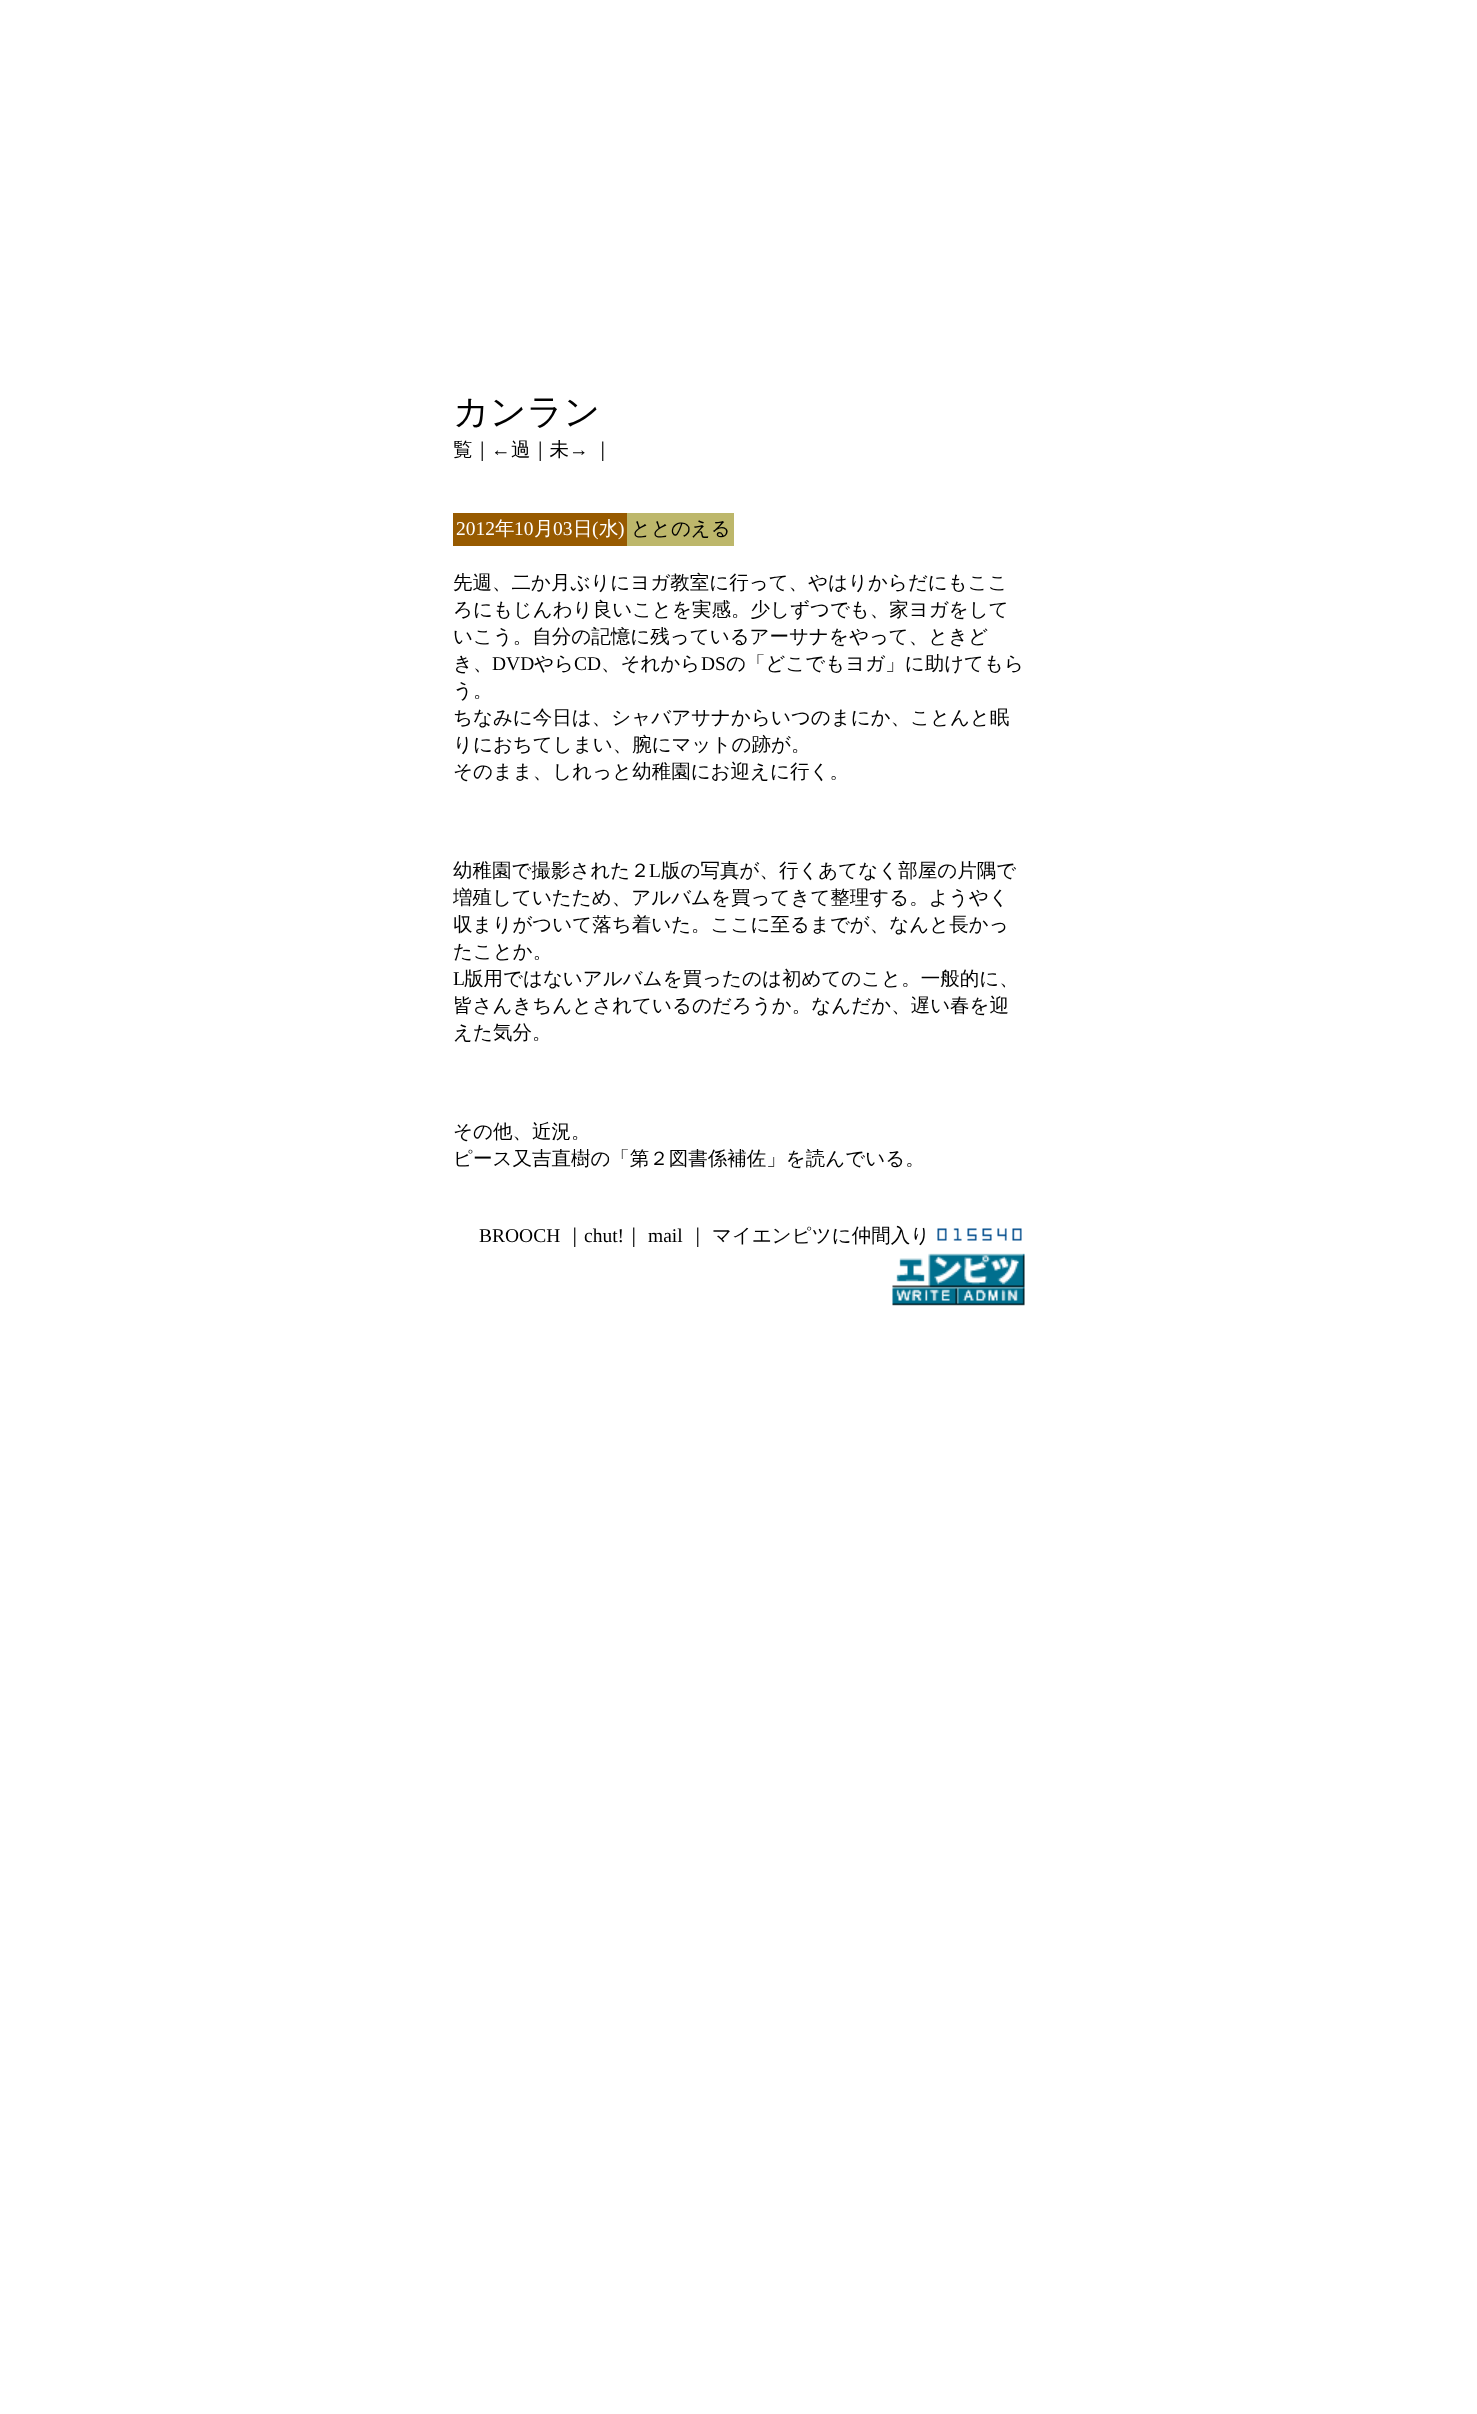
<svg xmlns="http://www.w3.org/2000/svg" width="1477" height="2414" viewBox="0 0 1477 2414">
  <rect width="100%" height="100%" fill="rgb(255,255,255)"/>
  <text x="453" y="424" font-family="WenQuanYi Zen Hei" font-size="36" font-weight="500" fill="rgb(0,0,0)">カンラン</text>
  <text x="453" y="456" font-family="WenQuanYi Zen Hei" font-size="19.5" font-weight="500" fill="rgb(0,0,0)">覧｜</text>
  <text x="491" y="456" font-family="Liberation Serif" font-size="19.5" fill="rgb(0,0,0)">←</text>
  <text x="511" y="456" font-family="WenQuanYi Zen Hei" font-size="19.5" font-weight="500" fill="rgb(0,0,0)">過｜未</text>
  <text x="569" y="456" font-family="Liberation Serif" font-size="19.5" fill="rgb(0,0,0)">→</text>
  <text x="593" y="456" font-family="WenQuanYi Zen Hei" font-size="19.5" font-weight="500" fill="rgb(0,0,0)">｜</text>
  <rect x="453" y="513" width="174" height="33" fill="rgb(151,90,0)"/>
  <text x="456" y="535" font-family="Liberation Serif" font-size="19.5" fill="rgb(255,255,255)">2012</text>
  <text x="495" y="535" font-family="WenQuanYi Zen Hei" font-size="19.5" font-weight="500" fill="rgb(255,255,255)">年</text>
  <text x="514" y="535" font-family="Liberation Serif" font-size="19.5" fill="rgb(255,255,255)">10</text>
  <text x="534" y="535" font-family="WenQuanYi Zen Hei" font-size="19.5" font-weight="500" fill="rgb(255,255,255)">月</text>
  <text x="553" y="535" font-family="Liberation Serif" font-size="19.5" fill="rgb(255,255,255)">03</text>
  <text x="573" y="535" font-family="WenQuanYi Zen Hei" font-size="19.5" font-weight="500" fill="rgb(255,255,255)">日</text>
  <text x="592" y="535" font-family="Liberation Serif" font-size="19.5" fill="rgb(255,255,255)">(</text>
  <text x="599" y="535" font-family="WenQuanYi Zen Hei" font-size="19.5" font-weight="500" fill="rgb(255,255,255)">水</text>
  <text x="618" y="535" font-family="Liberation Serif" font-size="19.5" fill="rgb(255,255,255)">)</text>
  <rect x="627" y="513" width="107" height="33" fill="rgb(189,183,107)"/>
  <g font-family="WenQuanYi Zen Hei" font-size="19.5" font-weight="500" fill="rgb(0,0,0)">
    <text x="631" y="535">ととのえる</text>
    <text>
      <tspan x="453" y="589">先週、二か月ぶりにヨガ教室に行って、やはりからだにもここ</tspan>
      <tspan x="453" y="616">ろにもじんわり良いことを実感。少しずつでも、家ヨガをして</tspan>
      <tspan x="453" y="643">いこう。自分の記憶に残っているアーサナをやって、ときど</tspan>
      <tspan x="453" y="670">き、</tspan>
    </text>
  </g>
  <text x="492" y="670" font-family="Liberation Serif" font-size="19.5" fill="rgb(0,0,0)">DVD</text>
  <text x="534" y="670" font-family="WenQuanYi Zen Hei" font-size="19.5" font-weight="500" fill="rgb(0,0,0)">やら</text>
  <text x="574" y="670" font-family="Liberation Serif" font-size="19.5" fill="rgb(0,0,0)">CD</text>
  <text x="601" y="670" font-family="WenQuanYi Zen Hei" font-size="19.5" font-weight="500" fill="rgb(0,0,0)">、それから</text>
  <text x="701" y="670" font-family="Liberation Serif" font-size="19.5" fill="rgb(0,0,0)">DS</text>
  <g font-family="WenQuanYi Zen Hei" font-size="19.5" font-weight="500" fill="rgb(0,0,0)">
    <text x="726" y="670">の「どこでもヨガ」に助けてもら</text>
    <text>
      <tspan x="453" y="697">う。</tspan>
      <tspan x="453" y="724">ちなみに今日は、シャバアサナからいつのまにか、ことんと眠</tspan>
      <tspan x="453" y="751">りにおちてしまい、腕にマットの跡が。</tspan>
      <tspan x="453" y="778">そのまま、しれっと幼稚園にお迎えに行く。</tspan>
    </text>
    <text x="453" y="877">幼稚園で撮影された２</text>
  </g>
  <text x="649" y="877" font-family="Liberation Serif" font-size="19.5" fill="rgb(0,0,0)">L</text>
  <g font-family="WenQuanYi Zen Hei" font-size="19.5" font-weight="500" fill="rgb(0,0,0)">
    <text x="661" y="877">版の写真が、行くあてなく部屋の片隅で</text>
    <text>
      <tspan x="453" y="904">増殖していたため、アルバムを買ってきて整理する。ようやく</tspan>
      <tspan x="453" y="931">収まりがついて落ち着いた。ここに至るまでが、なんと長かっ</tspan>
      <tspan x="453" y="958">たことか。</tspan>
    </text>
  </g>
  <text x="453" y="985" font-family="Liberation Serif" font-size="19.5" fill="rgb(0,0,0)">L</text>
  <g font-family="WenQuanYi Zen Hei" font-size="19.5" font-weight="500" fill="rgb(0,0,0)">
    <text x="464" y="985">版用ではないアルバムを買ったのは初めてのこと。一般的に、</text>
    <text>
      <tspan x="453" y="1012">皆さんきちんとされているのだろうか。なんだか、遅い春を迎</tspan>
      <tspan x="453" y="1039">えた気分。</tspan>
    </text>
    <text>
      <tspan x="453" y="1138">その他、近況。</tspan>
      <tspan x="453" y="1165">ピース又吉直樹の「第２図書係補佐」を読んでいる。</tspan>
    </text>
  </g>
  <text x="479" y="1242" font-family="Liberation Serif" font-size="19.5" fill="rgb(0,0,0)">BROOCH</text>
  <text x="565" y="1242" font-family="WenQuanYi Zen Hei" font-size="19.5" font-weight="500" fill="rgb(0,0,0)">｜</text>
  <text x="584" y="1242" font-family="Liberation Serif" font-size="19.5" fill="rgb(0,0,0)">chut!</text>
  <text x="624" y="1242" font-family="WenQuanYi Zen Hei" font-size="19.5" font-weight="500" fill="rgb(0,0,0)">｜</text>
  <text x="648" y="1242" font-family="Liberation Serif" font-size="19.5" fill="rgb(0,0,0)">mail</text>
  <g font-family="WenQuanYi Zen Hei" font-size="19.5" font-weight="500" fill="rgb(0,0,0)">
    <text x="688" y="1242">｜</text>
    <text x="712" y="1242">マイエンピツに仲間入り</text>
  </g>
  <image x="937" y="1228" width="85" height="13" href="pic1.png"/>
  <image x="892" y="1253" width="133" height="53" href="pic2.png"/>
</svg>
